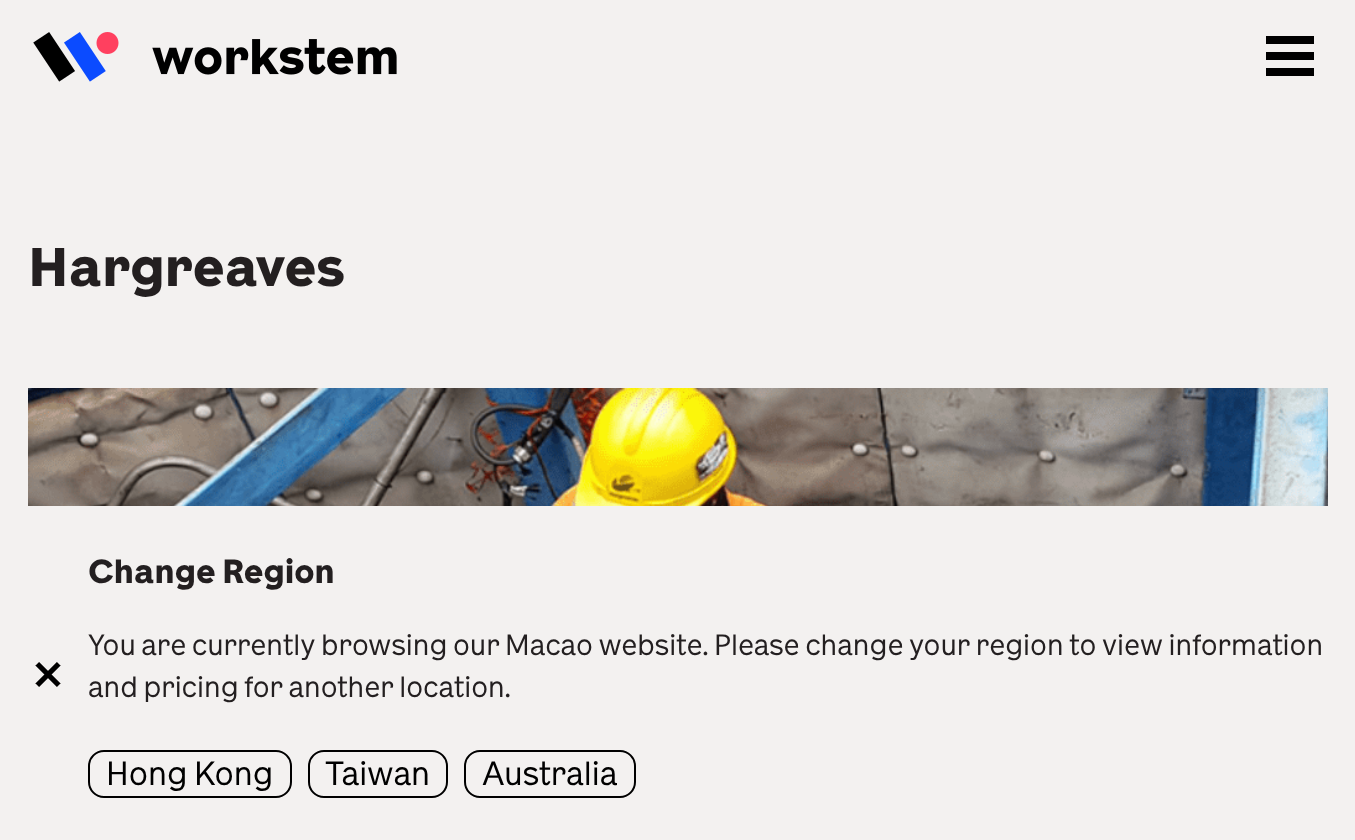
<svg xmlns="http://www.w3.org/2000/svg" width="1355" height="840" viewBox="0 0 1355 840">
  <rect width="100%" height="100%" fill="rgb(243,241,240)"/>
  <image x="33" y="32" width="364" height="50" href="pic1.png"/>
  <rect x="1266" y="36" width="48" height="8" fill="rgb(0,0,0)"/>
  <rect x="1266" y="52" width="48" height="8" fill="rgb(0,0,0)"/>
  <rect x="1266" y="68" width="48" height="8" fill="rgb(0,0,0)"/>
  <text x="28" y="286" font-family="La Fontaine" font-size="52" font-weight="bold" fill="rgb(35,31,32)">Hargreaves</text>
  <image x="28" y="388" width="1300" height="118" href="pic2.png"/>
  <image x="35" y="662" width="26" height="25" href="pic3.png"/>
  <text x="88" y="583" font-family="La Fontaine" font-size="32" font-weight="bold" fill="rgb(35,31,32)">Change Region</text>
  <g font-family="La Fontaine" font-size="28" fill="rgb(35,31,32)">
    <text>
      <tspan x="88" y="655">You are currently browsing our Macao website. Please change your region to view information</tspan>
      <tspan x="88" y="697">and pricing for another location.</tspan>
    </text>
  </g>
  <rect x="89" y="751" width="202" height="46" rx="15" fill="none" stroke="rgb(0,0,0)" stroke-width="2"/>
  <text x="106" y="785" font-family="La Fontaine" font-size="32" fill="rgb(0,0,0)">Hong Kong</text>
  <rect x="309" y="751" width="138" height="46" rx="15" fill="none" stroke="rgb(0,0,0)" stroke-width="2"/>
  <text x="325" y="785" font-family="La Fontaine" font-size="32" fill="rgb(0,0,0)">Taiwan</text>
  <rect x="465" y="751" width="170" height="46" rx="15" fill="none" stroke="rgb(0,0,0)" stroke-width="2"/>
  <text x="482" y="785" font-family="La Fontaine" font-size="32" fill="rgb(0,0,0)">Australia</text>
</svg>
